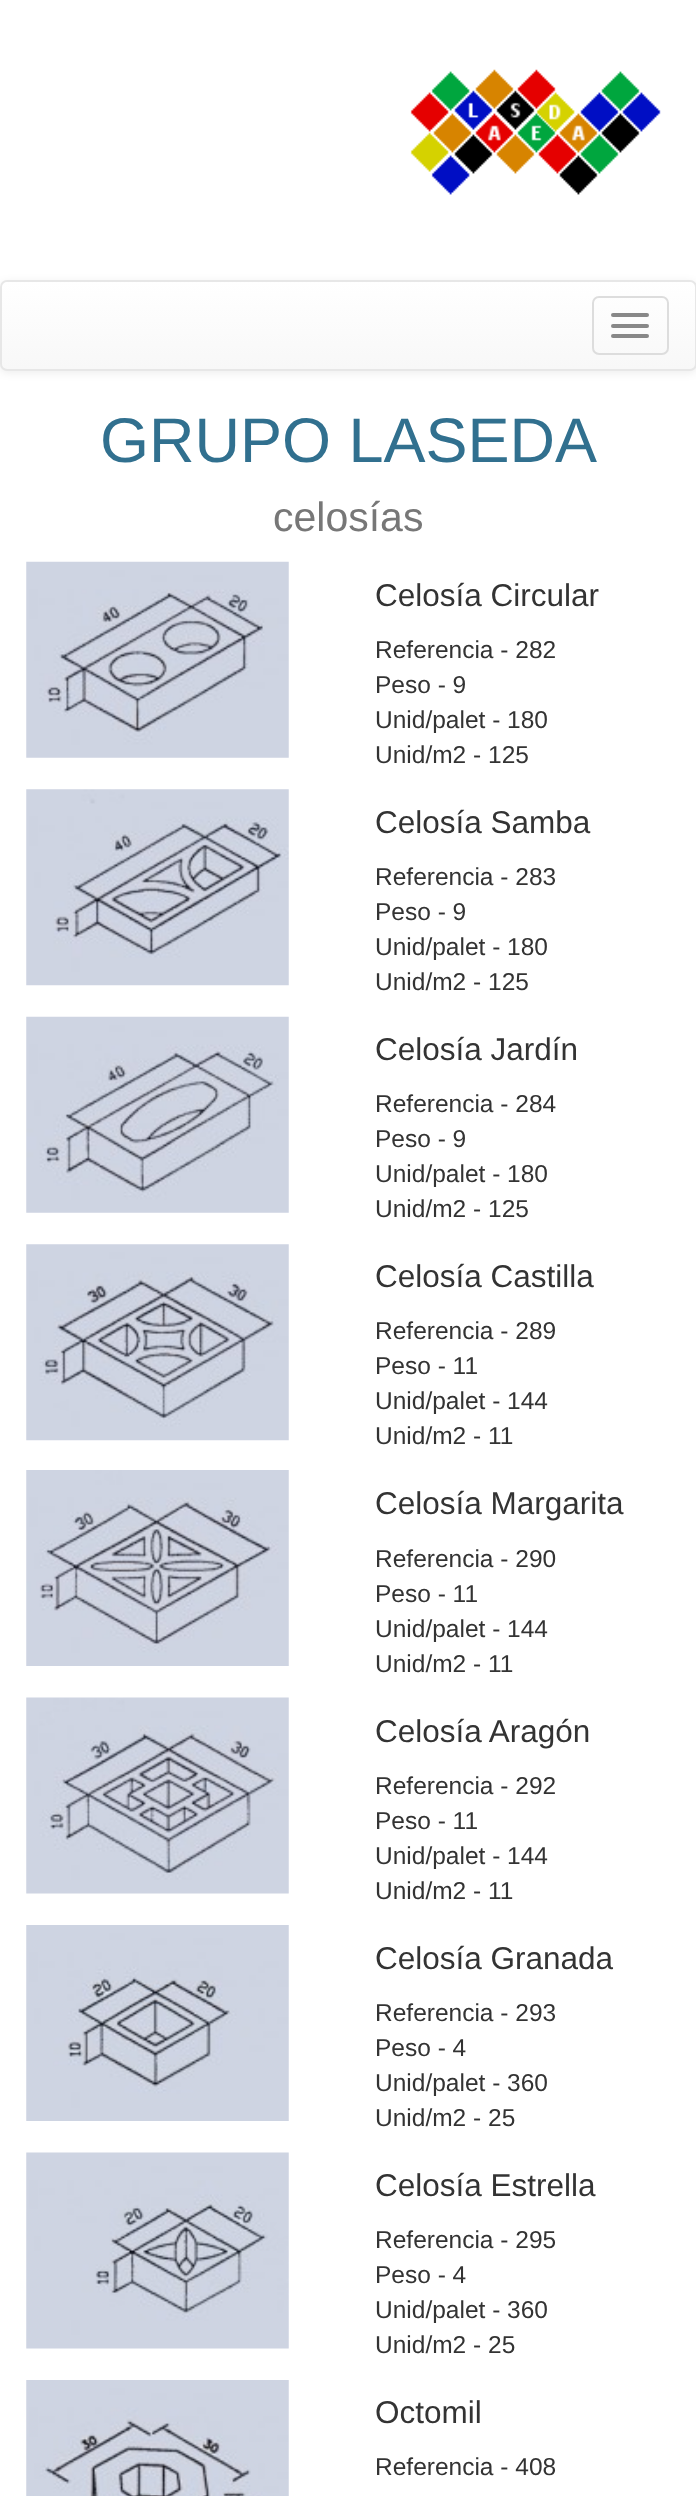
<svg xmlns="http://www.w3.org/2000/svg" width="696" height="2496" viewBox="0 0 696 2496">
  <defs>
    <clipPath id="clip1"><rect x="0" y="280" width="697" height="91" rx="7"/></clipPath>
    <linearGradient id="g1" gradientUnits="userSpaceOnUse" x1="348" y1="282" x2="348" y2="369"><stop offset="0" stop-color="rgb(255,255,255)"/><stop offset="1" stop-color="rgb(248,248,248)"/></linearGradient>
  </defs>
  <rect width="100%" height="100%" fill="rgb(255,255,255)"/>
  <image x="410" y="69" width="251" height="126" href="pic1.png"/>
  <rect x="0" y="282" width="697" height="91" rx="7" fill="rgba(0,0,0,0.07)" filter="blur(4.5px)"/>
  <g clip-path="url(#clip1)">
    <rect x="0" y="282" width="696" height="87" fill="url(#g1)"/>
  </g>
  <rect x="1" y="281" width="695" height="89" rx="6" fill="none" stroke="rgb(231,231,231)" stroke-width="2"/>
  <rect x="593" y="297" width="75" height="57" rx="6" fill="none" stroke="rgb(221,221,221)" stroke-width="2"/>
  <rect x="611" y="313" width="38" height="4" rx="2" fill="rgb(136,136,136)"/>
  <rect x="611" y="324" width="38" height="4" rx="2" fill="rgb(136,136,136)"/>
  <rect x="611" y="334" width="38" height="4" rx="2" fill="rgb(136,136,136)"/>
  <text x="100" y="462" font-family="Liberation Sans" font-size="63" fill="rgb(49,112,143)">GRUPO LASEDA</text>
  <text x="273" y="531" font-family="Liberation Sans" font-size="41" fill="rgb(119,119,119)">celosías</text>
  <image x="26" y="561" width="263" height="197" href="pic2.png"/>
  <text x="375" y="606" font-family="Liberation Sans" font-size="31.5" fill="rgb(51,51,51)">Celosía Circular</text>
  <g font-family="Liberation Sans" font-size="24.5" fill="rgb(51,51,51)">
    <text>
      <tspan x="375" y="658">Referencia - 282</tspan>
      <tspan x="375" y="693">Peso - 9</tspan>
      <tspan x="375" y="728">Unid/palet - 180</tspan>
      <tspan x="375" y="763">Unid/m2 - 125</tspan>
    </text>
  </g>
  <image x="26" y="789" width="263" height="197" href="pic3.png"/>
  <text x="375" y="833" font-family="Liberation Sans" font-size="31.5" fill="rgb(51,51,51)">Celosía Samba</text>
  <g font-family="Liberation Sans" font-size="24.5" fill="rgb(51,51,51)">
    <text>
      <tspan x="375" y="885">Referencia - 283</tspan>
      <tspan x="375" y="920">Peso - 9</tspan>
      <tspan x="375" y="955">Unid/palet - 180</tspan>
      <tspan x="375" y="990">Unid/m2 - 125</tspan>
    </text>
  </g>
  <image x="26" y="1016" width="263" height="197" href="pic4.png"/>
  <text x="375" y="1060" font-family="Liberation Sans" font-size="31.5" fill="rgb(51,51,51)">Celosía Jardín</text>
  <g font-family="Liberation Sans" font-size="24.5" fill="rgb(51,51,51)">
    <text>
      <tspan x="375" y="1112">Referencia - 284</tspan>
      <tspan x="375" y="1147">Peso - 9</tspan>
      <tspan x="375" y="1182">Unid/palet - 180</tspan>
      <tspan x="375" y="1217">Unid/m2 - 125</tspan>
    </text>
  </g>
  <image x="26" y="1244" width="263" height="197" href="pic5.png"/>
  <text x="375" y="1287" font-family="Liberation Sans" font-size="31.5" fill="rgb(51,51,51)">Celosía Castilla</text>
  <g font-family="Liberation Sans" font-size="24.5" fill="rgb(51,51,51)">
    <text>
      <tspan x="375" y="1339">Referencia - 289</tspan>
      <tspan x="375" y="1374">Peso - 11</tspan>
      <tspan x="375" y="1409">Unid/palet - 144</tspan>
      <tspan x="375" y="1444">Unid/m2 - 11</tspan>
    </text>
  </g>
  <image x="26" y="1470" width="263" height="196" href="pic6.png"/>
  <text x="375" y="1514" font-family="Liberation Sans" font-size="31.5" fill="rgb(51,51,51)">Celosía Margarita</text>
  <g font-family="Liberation Sans" font-size="24.5" fill="rgb(51,51,51)">
    <text>
      <tspan x="375" y="1567">Referencia - 290</tspan>
      <tspan x="375" y="1602">Peso - 11</tspan>
      <tspan x="375" y="1637">Unid/palet - 144</tspan>
      <tspan x="375" y="1672">Unid/m2 - 11</tspan>
    </text>
  </g>
  <image x="26" y="1697" width="263" height="197" href="pic7.png"/>
  <text x="375" y="1742" font-family="Liberation Sans" font-size="31.5" fill="rgb(51,51,51)">Celosía Aragón</text>
  <g font-family="Liberation Sans" font-size="24.5" fill="rgb(51,51,51)">
    <text>
      <tspan x="375" y="1794">Referencia - 292</tspan>
      <tspan x="375" y="1829">Peso - 11</tspan>
      <tspan x="375" y="1864">Unid/palet - 144</tspan>
      <tspan x="375" y="1899">Unid/m2 - 11</tspan>
    </text>
  </g>
  <image x="26" y="1925" width="263" height="196" href="pic8.png"/>
  <text x="375" y="1969" font-family="Liberation Sans" font-size="31.5" fill="rgb(51,51,51)">Celosía Granada</text>
  <g font-family="Liberation Sans" font-size="24.5" fill="rgb(51,51,51)">
    <text>
      <tspan x="375" y="2021">Referencia - 293</tspan>
      <tspan x="375" y="2056">Peso - 4</tspan>
      <tspan x="375" y="2091">Unid/palet - 360</tspan>
      <tspan x="375" y="2126">Unid/m2 - 25</tspan>
    </text>
  </g>
  <image x="26" y="2152" width="263" height="197" href="pic9.png"/>
  <text x="375" y="2196" font-family="Liberation Sans" font-size="31.5" fill="rgb(51,51,51)">Celosía Estrella</text>
  <g font-family="Liberation Sans" font-size="24.5" fill="rgb(51,51,51)">
    <text>
      <tspan x="375" y="2248">Referencia - 295</tspan>
      <tspan x="375" y="2283">Peso - 4</tspan>
      <tspan x="375" y="2318">Unid/palet - 360</tspan>
      <tspan x="375" y="2353">Unid/m2 - 25</tspan>
    </text>
  </g>
  <image x="26" y="2380" width="263" height="116" href="pic10.png"/>
  <text x="375" y="2423" font-family="Liberation Sans" font-size="31.5" fill="rgb(51,51,51)">Octomil</text>
  <text x="375" y="2475" font-family="Liberation Sans" font-size="24.5" fill="rgb(51,51,51)">Referencia - 408</text>
</svg>
